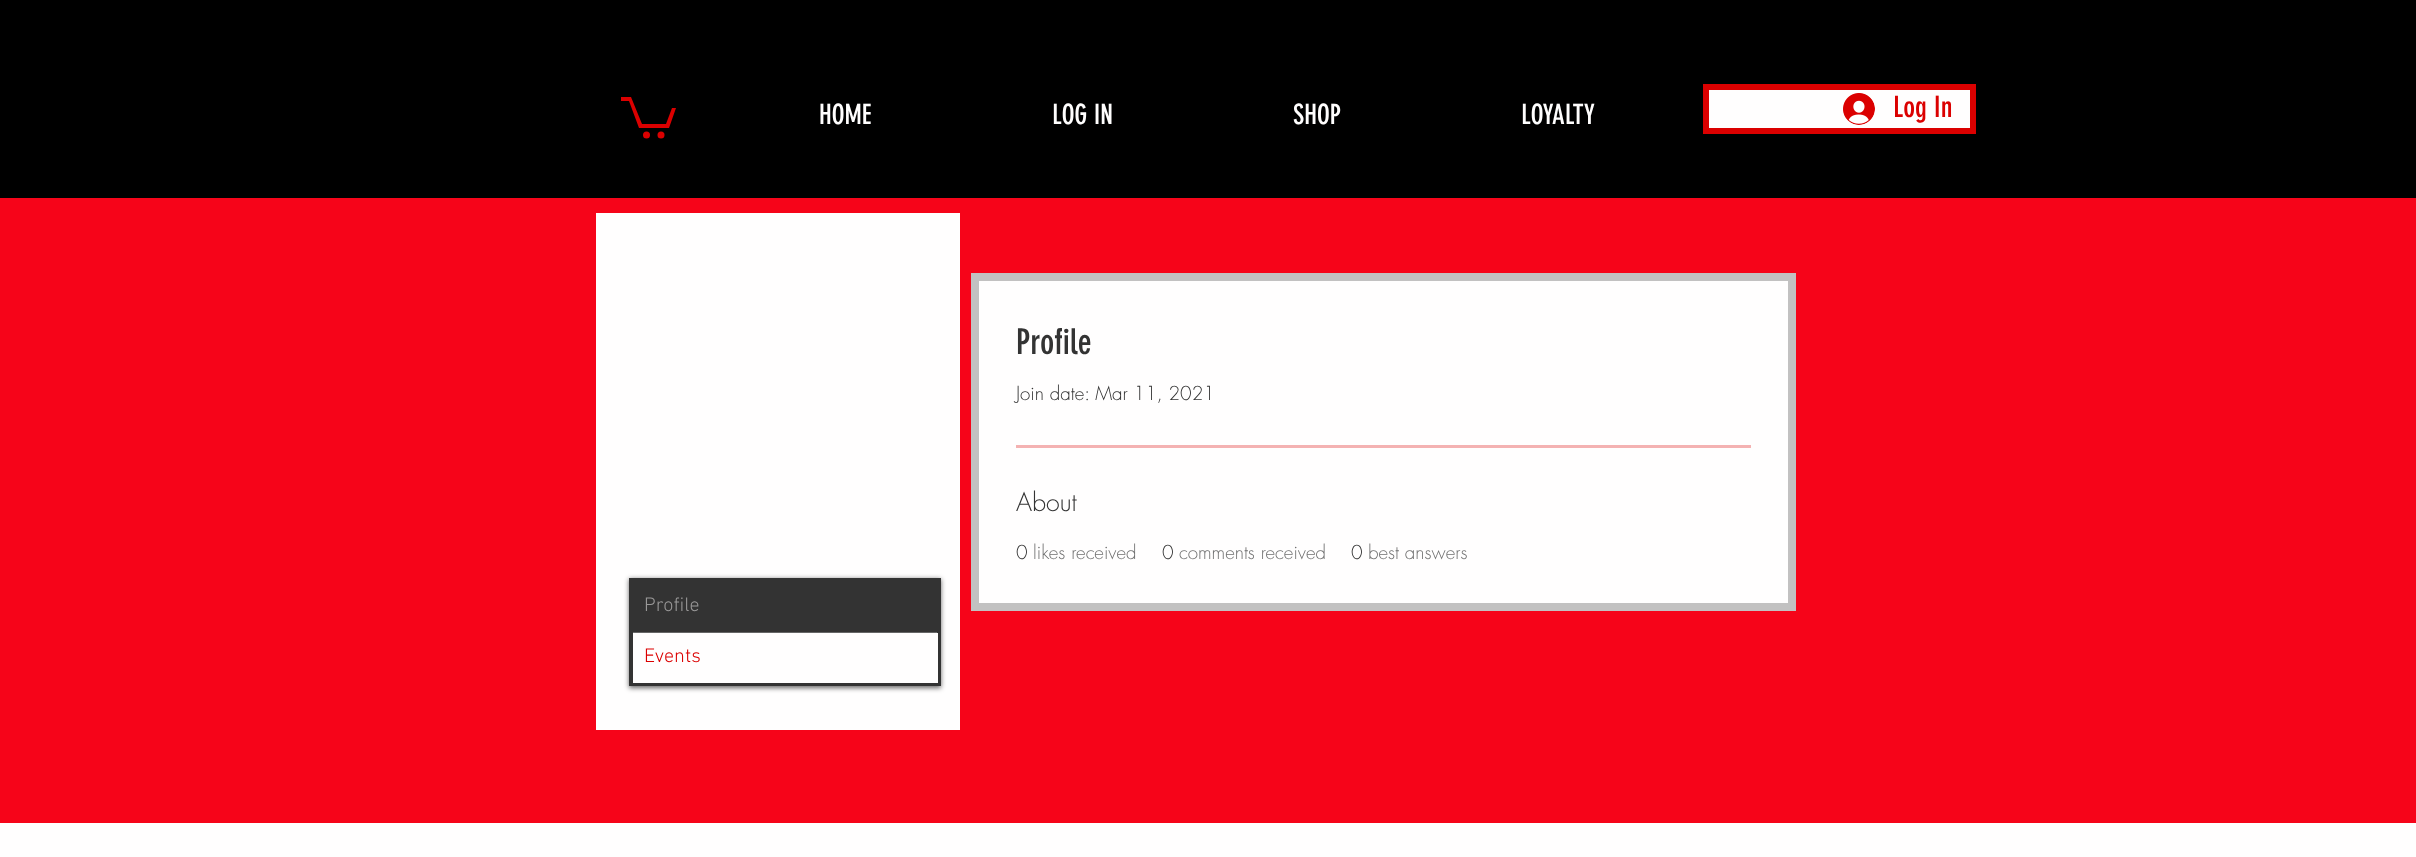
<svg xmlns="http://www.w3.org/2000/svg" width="2416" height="857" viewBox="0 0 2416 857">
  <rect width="100%" height="100%" fill="rgb(246,4,25)"/>
  <rect x="0" y="0" width="2416" height="198" fill="rgb(0,0,0)"/>
  <path d="M676 108L669 128H639L629 101H621V97H631L642 124H666L672 108" fill="rgb(219,0,0)"/>
  <circle cx="661" cy="135" r="3.5" fill="rgb(219,0,0)"/>
  <circle cx="646.5" cy="135" r="3.5" fill="rgb(219,0,0)"/>
  <g font-family="'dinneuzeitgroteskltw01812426'" font-size="27.5" fill="rgb(255,254,254)">
    <text x="819" y="124">HOME</text>
    <text x="1052" y="124">LOG IN</text>
    <text x="1293" y="124">SHOP</text>
    <text x="1521" y="124">LOYALTY</text>
  </g>
  <rect x="1706" y="87" width="267" height="44" fill="rgb(255,254,254)" stroke="rgb(219,0,0)" stroke-width="6"/>
  <image x="1843" y="93" width="32" height="32" href="pic1.png"/>
  <text x="1893" y="117" font-family="'dinneuzeitgroteskltw01812426'" font-size="29" fill="rgb(219,0,0)">Log In</text>
  <rect x="975" y="277" width="817" height="330" fill="rgb(255,254,254)" stroke="rgb(194,193,193)" stroke-width="8"/>
  <text x="1016" y="354" font-family="'dinneuzeitgroteskltw01812426'" font-size="35" fill="rgb(51,51,51)">Profile</text>
  <text x="1016" y="400" font-family="futura" font-size="18.75" font-weight="300" fill="rgb(51,51,51)">Join date: Mar 11, 2021</text>
  <rect x="1016" y="445" width="735" height="3" fill="rgb(244,178,178)"/>
  <text x="1016" y="511" font-family="futura" font-size="25" font-weight="300" fill="rgb(51,51,51)">About</text>
  <text x="1016" y="559" font-family="futura" font-size="18.75" font-weight="300" fill="rgb(51,51,51)">0</text>
  <text x="1033" y="559" font-family="futura" font-size="18.75" font-weight="300" fill="rgb(112,112,112)">likes received</text>
  <text x="1162" y="559" font-family="futura" font-size="18.75" font-weight="300" fill="rgb(51,51,51)">0</text>
  <text x="1179" y="559" font-family="futura" font-size="18.75" font-weight="300" fill="rgb(112,112,112)">comments received</text>
  <text x="1351" y="559" font-family="futura" font-size="18.75" font-weight="300" fill="rgb(51,51,51)">0</text>
  <text x="1368" y="559" font-family="futura" font-size="18.75" font-weight="300" fill="rgb(112,112,112)">best answers</text>
  <rect x="596" y="213" width="364" height="517" fill="rgb(255,254,254)"/>
  <rect x="629" y="579" width="312" height="109" fill="rgba(0,0,0,0.6)" filter="blur(2.5px)"/>
  <rect x="631" y="580" width="308" height="104" fill="none" stroke="rgb(51,51,51)" stroke-width="4"/>
  <rect x="633" y="631" width="305" height="1" fill="rgb(51,51,51)"/>
  <rect x="633" y="582" width="304" height="49" fill="rgb(51,51,51)"/>
  <text x="644" y="611" font-family="'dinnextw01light'" font-size="20" font-weight="300" fill="rgb(153,152,152)">Profile</text>
  <rect x="633" y="633" width="305" height="50" fill="rgb(255,254,254)"/>
  <text x="644" y="662" font-family="'dinnextw01light'" font-size="20" font-weight="300" fill="rgb(219,0,0)">Events</text>
  <rect x="0" y="823" width="2416" height="34" fill="rgb(255,254,254)"/>
</svg>
